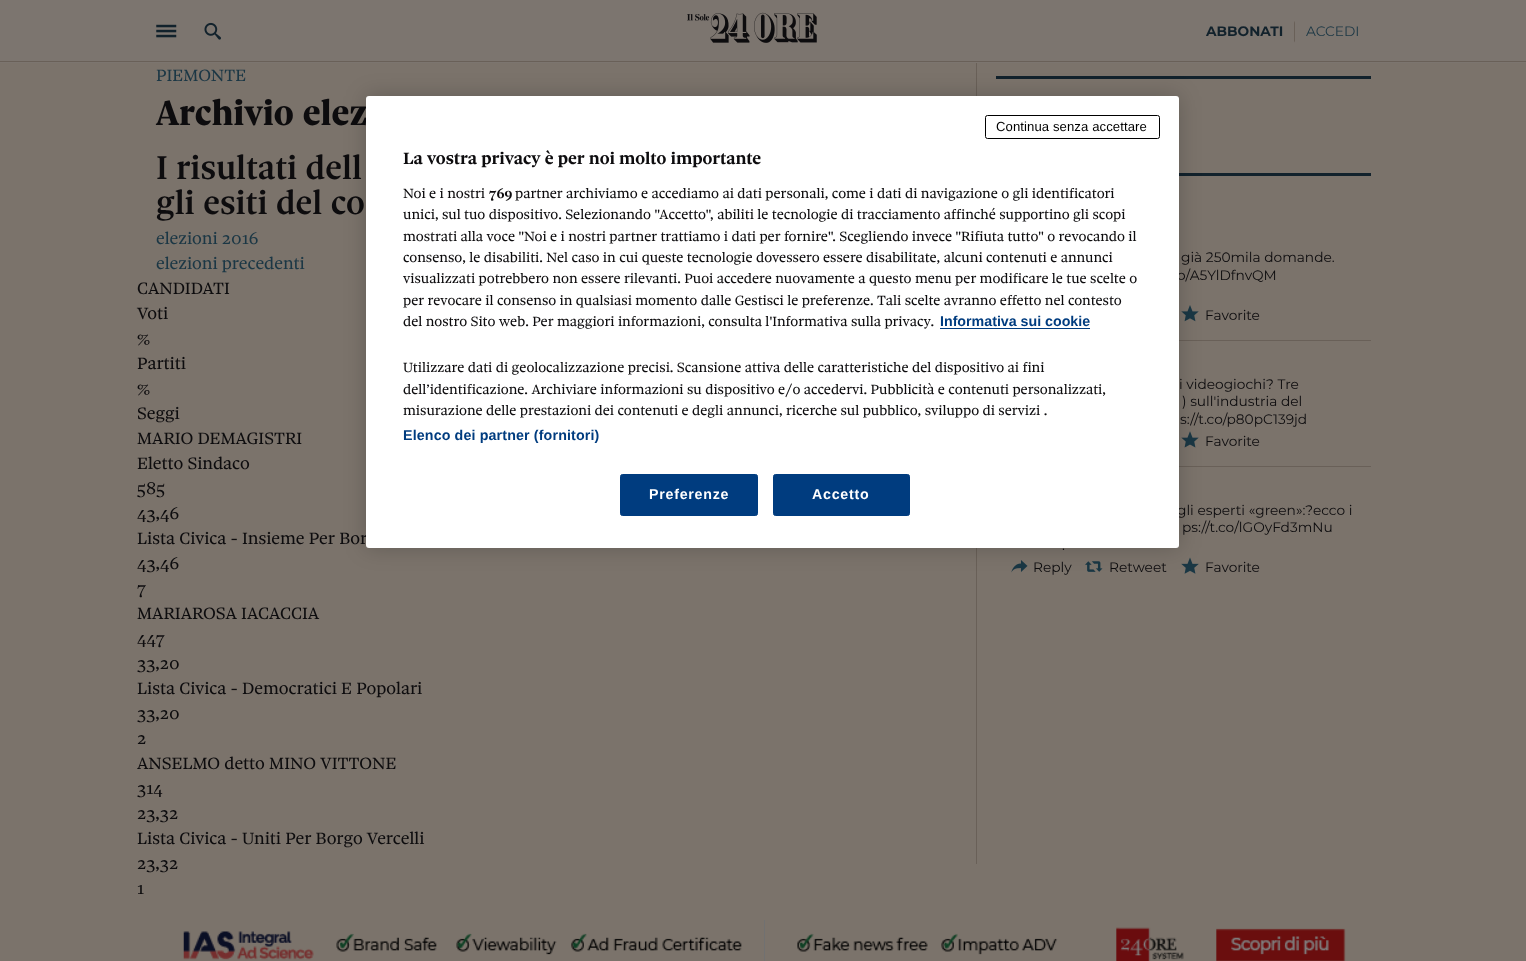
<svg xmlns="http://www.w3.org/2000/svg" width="1526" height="961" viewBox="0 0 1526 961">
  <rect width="100%" height="100%" fill="rgb(123,115,107)"/>
  <rect x="0" y="0" width="1526" height="63" fill="rgb(124,117,111)"/>
  <rect x="0" y="61" width="1526" height="1" fill="rgb(105,96,88)"/>
  <image x="156" y="24" width="21" height="14" href="pic1.png"/>
  <image x="204" y="22" width="17" height="18" href="pic2.png"/>
  <image x="687" y="12" width="130" height="31" href="pic3.png"/>
  <path d="M1295 21V42.5L1294 41V22.5Z" fill="rgb(105,96,88)"/>
  <text x="1206" y="36" font-family="Montserrat" font-size="13.75" font-weight="bold" fill="rgb(18,34,44)">ABBONATI</text>
  <text x="1306" y="36" font-family="Montserrat" font-size="13.75" fill="rgb(27,55,69)">ACCEDI</text>
  <text x="156" y="81" font-family="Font" font-size="17.5" fill="rgb(27,55,69)">PIEMONTE</text>
  <text x="156" y="125" font-family="Font" font-size="37.5" font-weight="bold" fill="rgb(13,12,14)">Archivio elez</text>
  <g font-family="Font" font-size="35" font-weight="500" fill="rgb(13,12,14)">
    <text>
      <tspan x="156" y="179">I risultati dell</tspan>
      <tspan x="156" y="214">gli esiti del co</tspan>
    </text>
  </g>
  <g font-family="Font" font-size="17.5" fill="rgb(27,55,69)">
    <text>
      <tspan x="156" y="244">elezioni 2016</tspan>
      <tspan x="156" y="269">elezioni precedenti</tspan>
    </text>
  </g>
  <g font-family="Font" font-size="17.5" fill="rgb(13,12,14)">
    <text>
      <tspan x="137" y="294">CANDIDATI</tspan>
      <tspan x="137" y="319">Voti</tspan>
      <tspan x="137" y="344">%</tspan>
      <tspan x="137" y="369">Partiti</tspan>
      <tspan x="137" y="394">%</tspan>
      <tspan x="137" y="419">Seggi</tspan>
      <tspan x="137" y="444">MARIO DEMAGISTRI</tspan>
      <tspan x="137" y="469">Eletto Sindaco</tspan>
      <tspan x="137" y="494">585</tspan>
      <tspan x="137" y="519">43,46</tspan>
      <tspan x="137" y="544">Lista Civica - Insieme Per Bor</tspan>
      <tspan x="137" y="569">43,46</tspan>
      <tspan x="137" y="594">7</tspan>
      <tspan x="137" y="619">MARIAROSA IACACCIA</tspan>
      <tspan x="137" y="644">447</tspan>
      <tspan x="137" y="669">33,20</tspan>
      <tspan x="137" y="694">Lista Civica - Democratici E Popolari</tspan>
      <tspan x="137" y="719">33,20</tspan>
      <tspan x="137" y="744">2</tspan>
      <tspan x="137" y="769">ANSELMO detto MINO VITTONE</tspan>
      <tspan x="137" y="794">314</tspan>
      <tspan x="137" y="819">23,32</tspan>
      <tspan x="137" y="844">Lista Civica - Uniti Per Borgo Vercelli</tspan>
      <tspan x="137" y="869">23,32</tspan>
      <tspan x="137" y="894">1</tspan>
    </text>
  </g>
  <rect x="976" y="63" width="1" height="801" fill="rgb(105,96,88)"/>
  <rect x="996" y="76" width="375" height="3" fill="rgb(18,34,44)"/>
  <rect x="1179" y="173" width="192" height="3" fill="rgb(18,34,44)"/>
  <rect x="1179" y="340" width="192" height="1" fill="rgb(105,96,88)"/>
  <g font-family="Montserrat" font-size="13.75" fill="rgb(13,12,14)">
    <text x="1181" y="262">già 250mila domande.</text>
    <text x="1177" y="280">o/A5YlDfnvQM</text>
  </g>
  <image x="1181" y="305" width="18" height="17" href="pic4.png"/>
  <text x="1205" y="320" font-family="Montserrat" font-size="13.75" fill="rgb(13,12,14)">Favorite</text>
  <rect x="1179" y="466" width="192" height="1" fill="rgb(105,96,88)"/>
  <g font-family="Montserrat" font-size="13.75" fill="rgb(13,12,14)">
    <text x="1179" y="389">i videogiochi? Tre</text>
    <text x="1182" y="406">) sull'industria del</text>
    <text x="1180" y="424">s://t.co/p80pC139jd</text>
  </g>
  <image x="1181" y="431" width="18" height="17" href="pic5.png"/>
  <g font-family="Montserrat" font-size="13.75" fill="rgb(13,12,14)">
    <text x="1205" y="446">Favorite</text>
    <text x="1177" y="515">gli esperti «green»:?ecco i</text>
    <text x="1182" y="532">ps://t.co/lGOyFd3mNu</text>
    <text x="1062" y="550">.</text>
  </g>
  <image x="1011" y="560" width="17" height="13" href="pic6.png"/>
  <text x="1033" y="572" font-family="Montserrat" font-size="13.75" fill="rgb(13,12,14)">Reply</text>
  <image x="1085" y="561" width="18" height="11" href="pic7.png"/>
  <text x="1109" y="572" font-family="Montserrat" font-size="13.75" fill="rgb(13,12,14)">Retweet</text>
  <image x="1181" y="557" width="18" height="17" href="pic8.png"/>
  <text x="1205" y="572" font-family="Montserrat" font-size="13.75" fill="rgb(13,12,14)">Favorite</text>
  <image x="183" y="931" width="559" height="29" href="pic9.png"/>
  <rect x="764" y="920" width="1" height="41" fill="rgb(113,113,113)"/>
  <image x="797" y="927" width="549" height="34" href="pic10.png"/>
  <rect x="366" y="96" width="813" height="452" rx="3" fill="rgba(0,0,0,0.2)" filter="blur(11px)"/>
  <rect x="366" y="96" width="813" height="452" rx="3" fill="rgb(255,255,255)"/>
  <rect x="985.5" y="115.5" width="174" height="23" rx="2" fill="none" stroke="rgb(0,0,0)"/>
  <text x="996" y="131" font-family="Liberation Sans" font-size="13.1" letter-spacing="0.1" fill="rgb(0,0,0)">Continua senza accettare</text>
  <text x="403" y="164" font-family="'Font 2'" font-size="17.5" font-weight="bold" fill="rgb(13,12,14)">La vostra privacy è per noi molto importante</text>
  <text x="403" y="198" font-family="Font" font-size="14.23" fill="rgb(13,12,14)">Noi e i nostri</text>
  <text x="489" y="198" font-family="'Font 2'" font-size="14.23" font-weight="bold" fill="rgb(13,12,14)">769</text>
  <g font-family="Font" font-size="14.23" fill="rgb(13,12,14)">
    <text x="515" y="198">partner archiviamo e accediamo ai dati personali, come i dati di navigazione o gli identificatori</text>
    <text>
      <tspan x="403" y="219">unici, sul tuo dispositivo. Selezionando "Accetto", abiliti le tecnologie di tracciamento affinché supportino gli scopi</tspan>
      <tspan x="403" y="241">mostrati alla voce "Noi e i nostri partner trattiamo i dati per fornire". Scegliendo invece "Rifiuta tutto" o revocando il</tspan>
      <tspan x="403" y="262">consenso, le disabiliti. Nel caso in cui queste tecnologie dovessero essere disabilitate, alcuni contenuti e annunci</tspan>
      <tspan x="403" y="283">visualizzati potrebbero non essere rilevanti. Puoi accedere nuovamente a questo menu per modificare le tue scelte o</tspan>
      <tspan x="403" y="305">per revocare il consenso in qualsiasi momento dalle Gestisci le preferenze. Tali scelte avranno effetto nel contesto</tspan>
      <tspan x="403" y="326">del nostro Sito web. Per maggiori informazioni, consulta l'Informativa sulla privacy.</tspan>
    </text>
  </g>
  <text x="940" y="326" font-family="Liberation Sans" font-size="14.23" font-weight="bold" fill="rgb(0,60,127)">Informativa sui cookie</text>
  <rect x="940" y="328" width="150" height="1" fill="rgb(0,60,127)"/>
  <g font-family="Font" font-size="14.23" fill="rgb(13,12,14)">
    <text>
      <tspan x="403" y="372">Utilizzare dati di geolocalizzazione precisi. Scansione attiva delle caratteristiche del dispositivo ai fini</tspan>
      <tspan x="403" y="394">dell’identificazione. Archiviare informazioni su dispositivo e/o accedervi. Pubblicità e contenuti personalizzati,</tspan>
      <tspan x="403" y="415">misurazione delle prestazioni dei contenuti e degli annunci, ricerche sul pubblico, sviluppo di servizi .</tspan>
    </text>
  </g>
  <text x="403" y="440" font-family="Liberation Sans" font-size="14.23" font-weight="bold" letter-spacing="0.15" fill="rgb(0,60,127)">Elenco dei partner (fornitori)</text>
  <rect x="620.5" y="474.5" width="137" height="41" rx="2" fill="rgb(0,60,127)" stroke="rgb(0,60,127)"/>
  <text x="649" y="499" font-family="Liberation Sans" font-size="14.23" font-weight="bold" letter-spacing="0.75" fill="rgb(255,255,255)">Preferenze</text>
  <rect x="773.5" y="474.5" width="136" height="41" rx="2" fill="rgb(0,60,127)" stroke="rgb(0,60,127)"/>
  <text x="812" y="499" font-family="Liberation Sans" font-size="14.23" font-weight="bold" letter-spacing="0.75" fill="rgb(255,255,255)">Accetto</text>
</svg>
